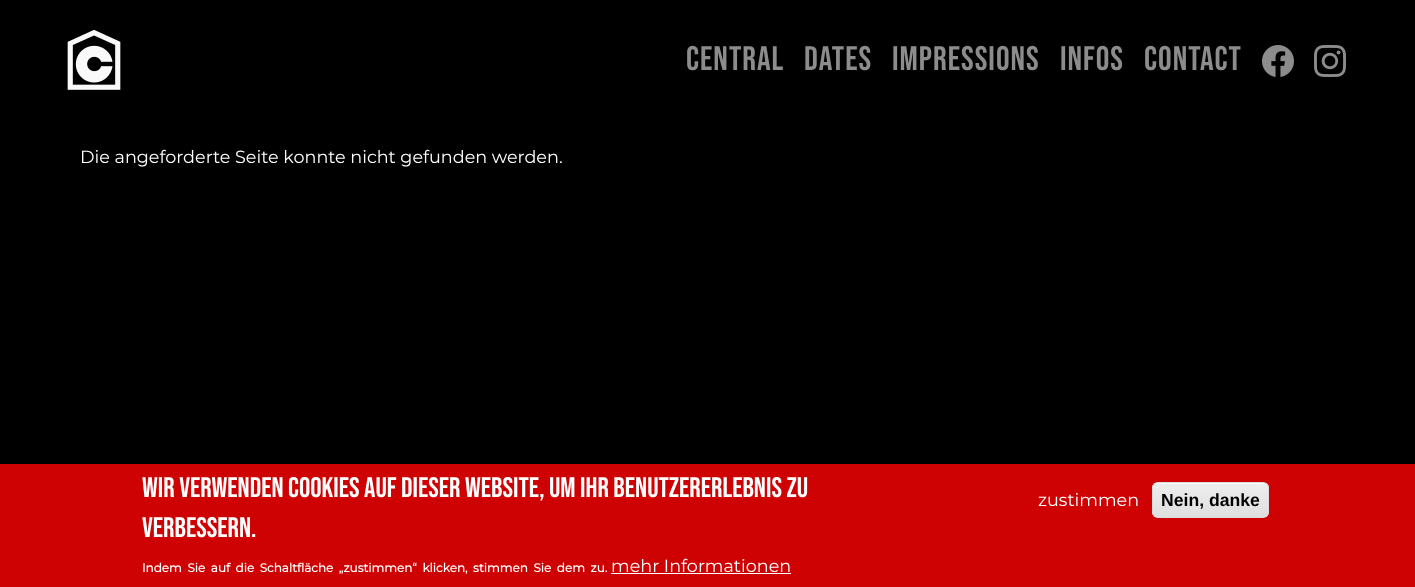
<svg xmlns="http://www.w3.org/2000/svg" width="1415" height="587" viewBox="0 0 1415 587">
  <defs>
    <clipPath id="clip1"><rect x="1152" y="482" width="117" height="36" rx="6"/></clipPath>
    <linearGradient id="g1" gradientUnits="userSpaceOnUse" x1="1211" y1="483" x2="1211" y2="517"><stop offset="0.05" stop-color="rgb(237,237,237)"/><stop offset="1" stop-color="rgb(223,223,223)"/></linearGradient>
  </defs>
  <rect width="100%" height="100%" fill="rgb(0,0,0)"/>
  <image x="67" y="30" width="54" height="60" href="pic1.png"/>
  <g font-family="Bebas Neue" font-size="34" letter-spacing="1" fill="rgb(140,140,140)">
    <text x="686" y="70">Central</text>
    <text x="804" y="70">Dates</text>
    <text x="892" y="70">Impressions</text>
    <text x="1060" y="70">Infos</text>
    <text x="1144" y="70">Contact</text>
  </g>
  <image x="1262" y="45" width="32" height="32" href="pic2.png"/>
  <image x="1314" y="45" width="32" height="32" href="pic3.png"/>
  <text x="80" y="163" font-family="Montserrat" font-size="17.6" fill="rgb(255,255,255)">Die angeforderte Seite konnte nicht gefunden werden.</text>
  <rect x="0" y="464" width="1415" height="123" fill="rgb(206,2,2)"/>
  <g font-family="Bebas Neue" font-size="28.3" fill="rgb(255,255,255)">
    <text>
      <tspan x="142" y="497">Wir verwenden Cookies auf dieser Website, um Ihr Benutzererlebnis zu</tspan>
      <tspan x="142" y="537">verbessern.</tspan>
    </text>
  </g>
  <text x="142" y="572" word-spacing="2.4" font-family="Montserrat" font-size="12" font-weight="bold" fill="rgb(255,255,255)">Indem Sie auf die Schaltfläche „zustimmen“ klicken, stimmen Sie dem zu.</text>
  <text x="611" y="572" font-family="Montserrat" font-size="17.6" fill="rgb(255,255,255)">mehr Informationen</text>
  <rect x="611" y="573" width="180" height="1" fill="rgb(255,255,255)"/>
  <text x="1038" y="506" font-family="Montserrat" font-size="17.6" fill="rgb(255,255,255)">zustimmen</text>
  <g clip-path="url(#clip1)">
    <rect x="1152" y="483" width="117" height="34" fill="url(#g1)"/>
  </g>
  <path d="M1158 484H1263C1266 484 1268 486 1268 489C1268 479 1250 483 1246 483H1176C1171 483 1153 479 1153 489C1153 486 1155 484 1158 484Z" fill="rgb(255,255,255)"/>
  <rect x="1152.5" y="482.5" width="116" height="35" rx="5.5" fill="none" stroke="rgb(220,220,220)"/>
  <text x="1161" y="506" font-family="Liberation Sans" font-size="17.6" font-weight="bold" fill="rgb(0,0,0)">Nein, danke</text>
</svg>
